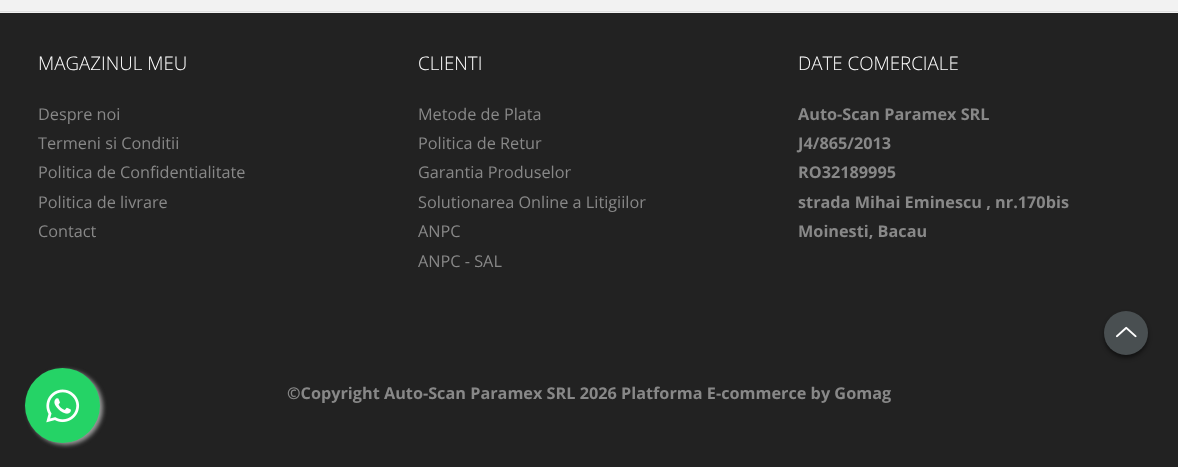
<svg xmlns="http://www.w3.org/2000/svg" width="1178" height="467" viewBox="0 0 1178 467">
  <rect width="100%" height="100%" fill="rgb(34,34,34)"/>
  <rect x="0" y="0" width="1178" height="13" fill="rgb(242,242,242)"/>
  <rect x="0" y="11" width="1178" height="1" fill="rgb(223,223,223)"/>
  <text x="38" y="70" font-family="Open Sans" font-size="18.75" font-weight="300" fill="rgb(255,255,255)">MAGAZINUL MEU</text>
  <g font-family="Open Sans" font-size="16.25" fill="rgb(136,136,136)">
    <text>
      <tspan x="38" y="120">Despre noi</tspan>
      <tspan x="38" y="149">Termeni si Conditii</tspan>
      <tspan x="38" y="178">Politica de Confidentialitate</tspan>
      <tspan x="38" y="208">Politica de livrare</tspan>
      <tspan x="38" y="237">Contact</tspan>
    </text>
  </g>
  <text x="418" y="70" font-family="Open Sans" font-size="18.75" font-weight="300" fill="rgb(255,255,255)">CLIENTI</text>
  <g font-family="Open Sans" font-size="16.25" fill="rgb(136,136,136)">
    <text>
      <tspan x="418" y="120">Metode de Plata</tspan>
      <tspan x="418" y="149">Politica de Retur</tspan>
      <tspan x="418" y="178">Garantia Produselor</tspan>
      <tspan x="418" y="208">Solutionarea Online a Litigiilor</tspan>
      <tspan x="418" y="237">ANPC</tspan>
      <tspan x="418" y="267">ANPC - SAL</tspan>
    </text>
  </g>
  <text x="798" y="70" font-family="Open Sans" font-size="18.75" font-weight="300" fill="rgb(255,255,255)">DATE COMERCIALE</text>
  <g font-family="Open Sans" font-size="16.25" font-weight="bold" fill="rgb(136,136,136)">
    <text>
      <tspan x="798" y="120">Auto-Scan Paramex SRL</tspan>
      <tspan x="798" y="149">J4/865/2013</tspan>
      <tspan x="798" y="178">RO32189995</tspan>
      <tspan x="798" y="208">strada Mihai Eminescu , nr.170bis</tspan>
      <tspan x="798" y="237">Moinesti, Bacau</tspan>
    </text>
    <text x="287" y="399">©Copyright Auto-Scan Paramex SRL 2026 Platforma E-commerce by Gomag</text>
  </g>
  <rect x="1104" y="314" width="44" height="44" rx="22" fill="rgba(0,0,0,0.5)" filter="blur(2px)"/>
  <circle cx="1126" cy="333" r="22" fill="rgb(73,79,81)"/>
  <image x="1116" y="326" width="21" height="12" href="pic1.png"/>
  <rect x="28" y="370" width="75" height="75" rx="37.5" fill="rgb(153,153,153)" filter="blur(2px)"/>
  <circle cx="62.5" cy="405.5" r="37.5" fill="rgb(37,211,102)"/>
  <image x="46" y="389" width="34" height="34" href="pic2.png"/>
</svg>
